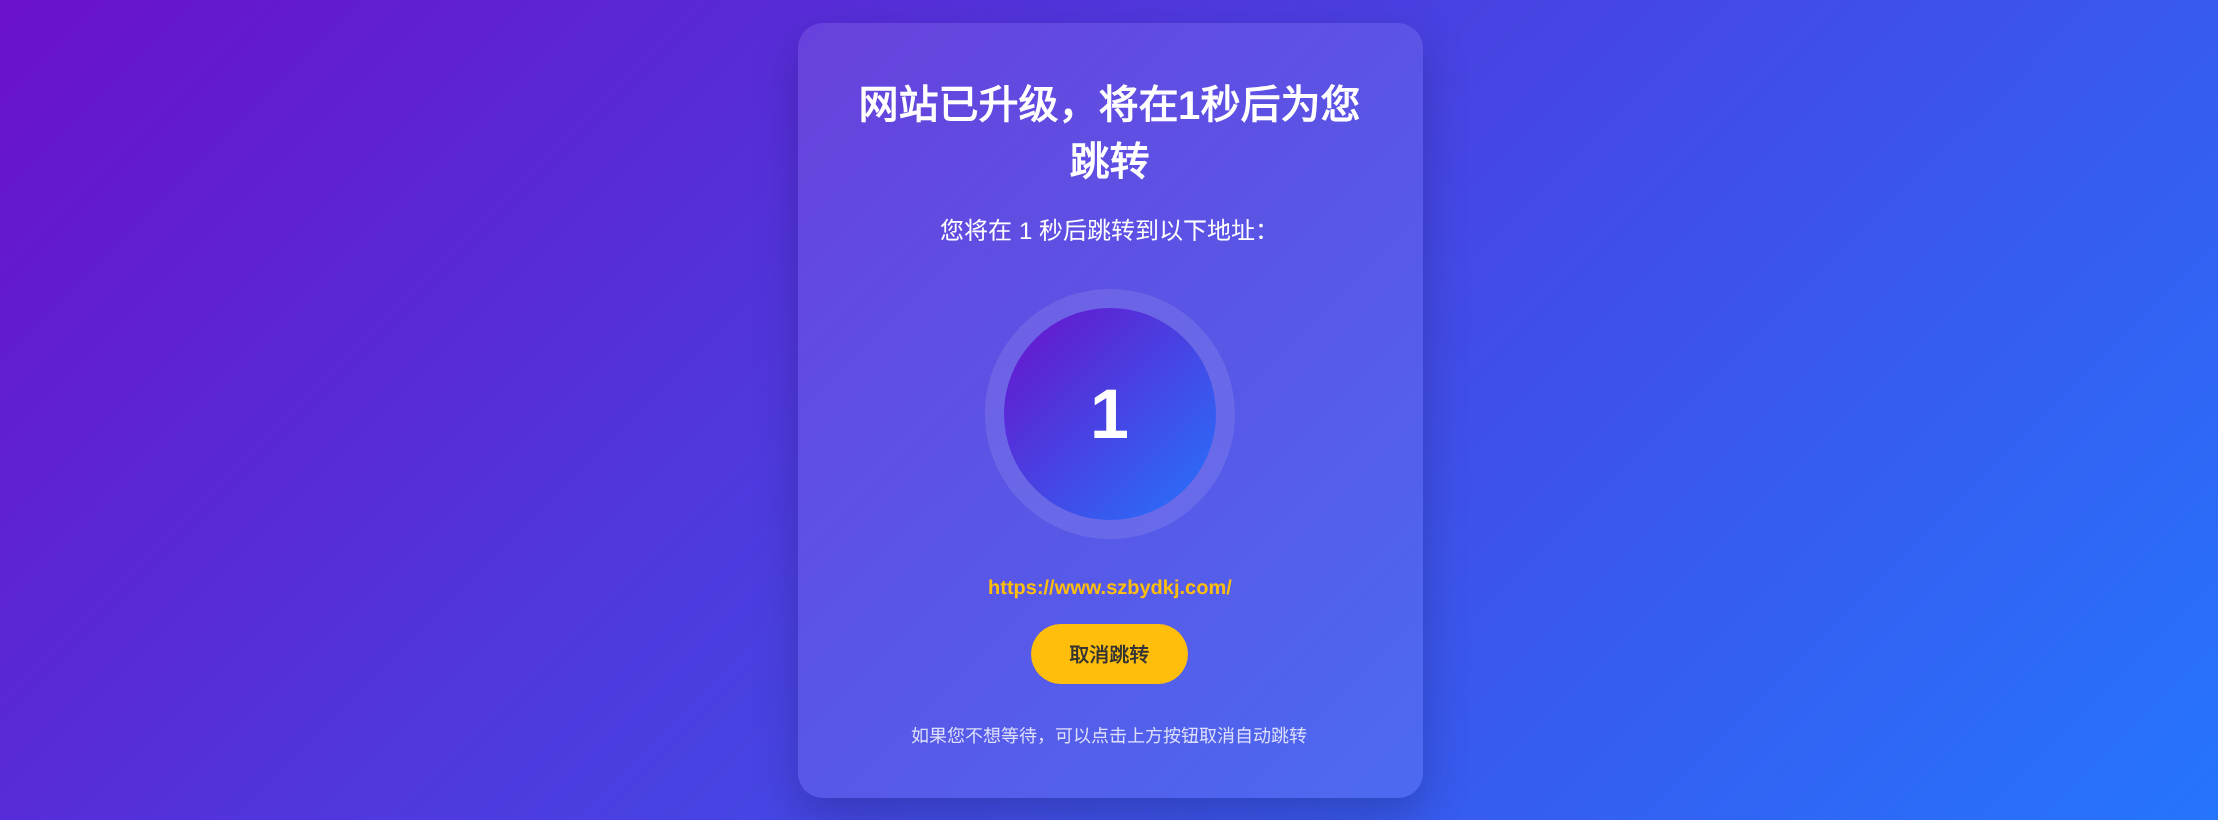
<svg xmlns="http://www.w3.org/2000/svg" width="2218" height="820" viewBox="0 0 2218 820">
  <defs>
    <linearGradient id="g1" gradientUnits="userSpaceOnUse" x1="350" y1="-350" x2="1869" y2="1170"><stop offset="0" stop-color="rgb(106,17,203)"/><stop offset="1" stop-color="rgb(37,117,252)"/></linearGradient>
    <clipPath id="clip1"><path d="M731 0H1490V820H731ZM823 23H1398C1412 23 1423 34 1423 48V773C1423 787 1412 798 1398 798H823C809 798 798 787 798 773V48C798 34 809 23 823 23Z" clip-rule="evenodd"/></clipPath>
    <linearGradient id="g2" gradientUnits="userSpaceOnUse" x1="1004" y1="308" x2="1216" y2="520"><stop offset="0" stop-color="rgb(106,17,203)"/><stop offset="1" stop-color="rgb(37,117,252)"/></linearGradient>
  </defs>
  <rect width="100%" height="100%" fill="rgb(255,255,255)"/>
  <rect x="0" y="0" width="2218" height="820" fill="url(#g1)"/>
  <g clip-path="url(#clip1)">
    <rect x="798" y="41" width="625" height="775" rx="25" fill="rgba(0,0,0,0.2)" filter="blur(22px)"/>
  </g>
  <rect x="798" y="23" width="625" height="775" rx="25" fill="rgba(255,255,255,0.1)"/>
  <text x="858" y="119" font-family="Noto Sans CJK SC" font-size="40" font-weight="bold" fill="rgb(255,255,255)">网站已升级，将在</text>
  <text x="1178" y="119" font-family="Liberation Sans" font-size="40" font-weight="bold" fill="rgb(255,255,255)">1</text>
  <g font-family="Noto Sans CJK SC" font-size="40" font-weight="bold" fill="rgb(255,255,255)">
    <text x="1200" y="119">秒后为您</text>
    <text x="1069" y="176">跳转</text>
  </g>
  <text x="940" y="239" font-family="Noto Sans CJK SC" font-size="24" fill="rgb(255,255,255)">您将在</text>
  <text x="1019" y="239" font-family="Liberation Sans" font-size="24" fill="rgb(255,255,255)">1</text>
  <text x="1039" y="239" font-family="Noto Sans CJK SC" font-size="24" fill="rgb(255,255,255)">秒后跳转到以下地址：</text>
  <path d="M1110 414V289C1179 289 1235 345 1235 414C1235 483 1179 539 1110 539C1041 539 985 483 985 414C985 345 1041 289 1110 289Z" fill="rgba(255,255,255,0.1)"/>
  <circle cx="1110" cy="414" r="106" fill="url(#g2)"/>
  <text x="1090" y="438" font-family="Liberation Sans" font-size="70" font-weight="bold" fill="rgb(255,255,255)">1</text>
  <text x="988" y="594" font-family="Liberation Sans" font-size="20" font-weight="bold" fill="rgb(255,190,11)">https://www.szbydkj.com/</text>
  <rect x="1031" y="624" width="157" height="60" rx="30" fill="rgb(255,190,11)"/>
  <text x="1069" y="662" font-family="Noto Sans CJK SC" font-size="20" font-weight="bold" fill="rgb(51,51,51)">取消跳转</text>
  <text x="911" y="742" font-family="Noto Sans CJK SC" font-size="18" fill="rgb(221,223,251)">如果您不想等待，可以点击上方按钮取消自动跳转</text>
</svg>
